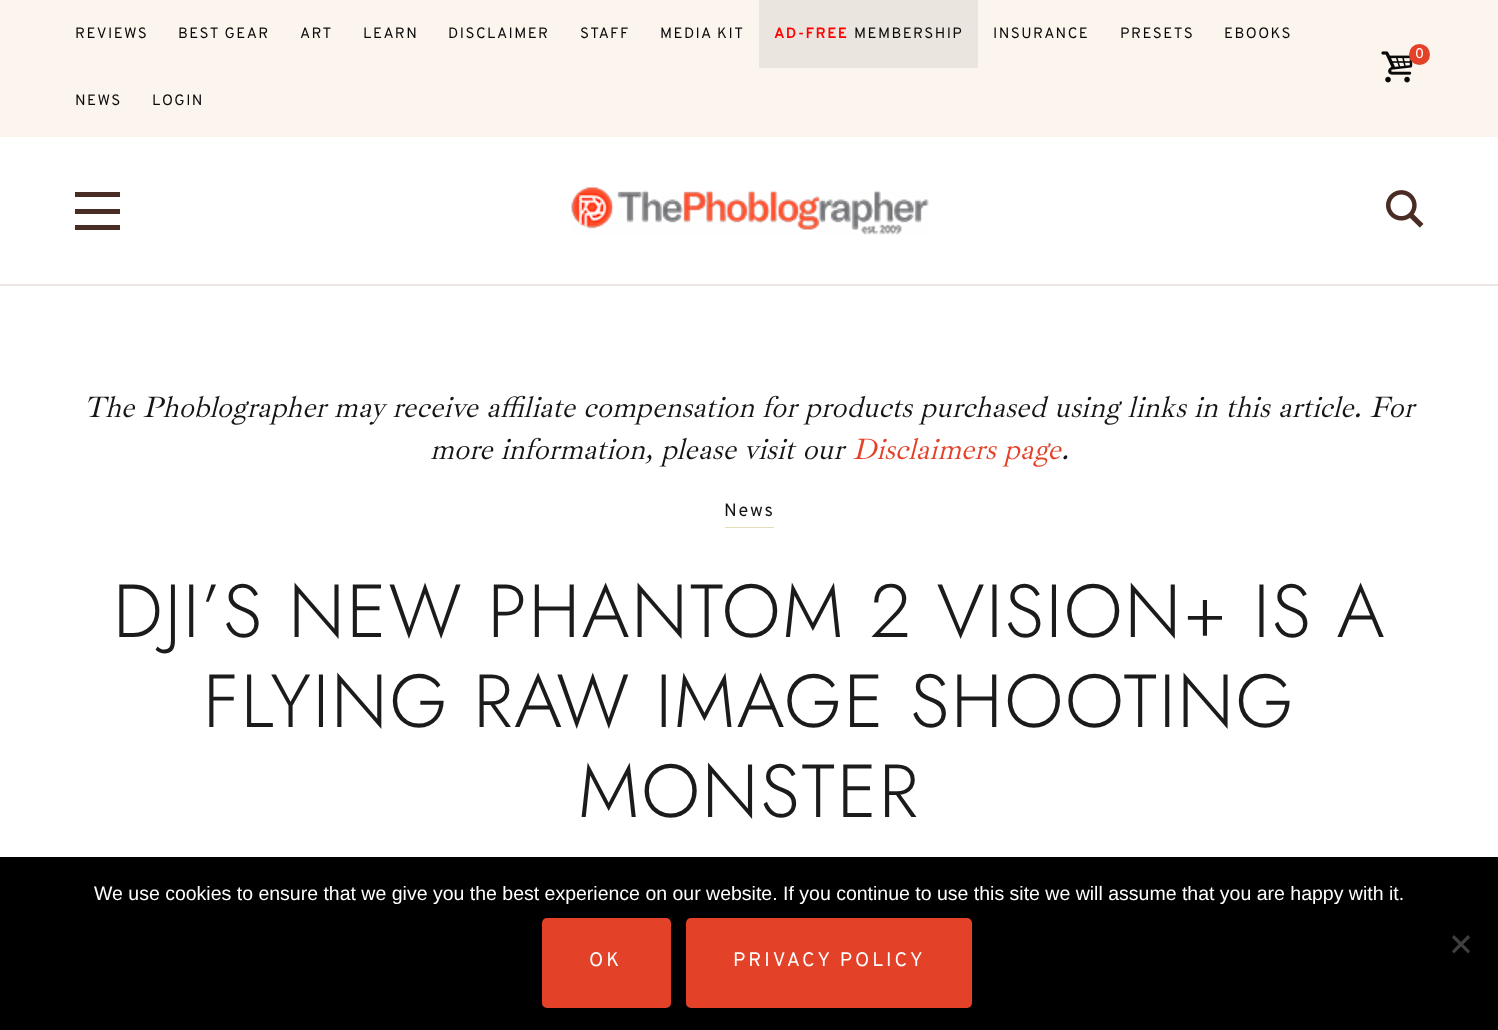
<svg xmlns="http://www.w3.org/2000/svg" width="1498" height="1030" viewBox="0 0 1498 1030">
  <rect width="100%" height="100%" fill="rgb(255,255,255)"/>
  <rect x="0" y="0" width="1498" height="137" fill="rgb(251,245,237)"/>
  <g font-family="Overpass" font-size="15" letter-spacing="1.5" fill="rgb(10,10,10)">
    <text x="75" y="38">REVIEWS</text>
    <text x="178" y="38">BEST GEAR</text>
    <text x="300" y="38">ART</text>
    <text x="363" y="38">LEARN</text>
    <text x="448" y="38">DISCLAIMER</text>
    <text x="580" y="38">STAFF</text>
    <text x="660" y="38">MEDIA KIT</text>
  </g>
  <rect x="759" y="0" width="219" height="68" fill="rgb(234,229,222)"/>
  <text x="774" y="38" font-family="Overpass" font-size="15" font-weight="600" letter-spacing="1.5" fill="rgb(255,0,0)">AD-FREE</text>
  <g font-family="Overpass" font-size="15" letter-spacing="1.5" fill="rgb(10,10,10)">
    <text x="854" y="38">MEMBERSHIP</text>
    <text x="993" y="38">INSURANCE</text>
    <text x="1120" y="38">PRESETS</text>
    <text x="1224" y="38">EBOOKS</text>
    <text x="75" y="105">NEWS</text>
    <text x="152" y="105">LOGIN</text>
  </g>
  <image x="1381" y="51" width="32" height="32" href="pic1.png"/>
  <circle cx="1419.5" cy="54.5" r="10.5" fill="rgb(227,66,40)"/>
  <text x="1415" y="58" font-family="Overpass" font-size="14" letter-spacing="1" fill="rgb(255,255,255)">0</text>
  <rect x="0" y="284" width="1498" height="2" fill="rgb(238,230,226)"/>
  <rect x="75" y="192" width="45" height="5" fill="rgb(73,44,35)"/>
  <rect x="75" y="225" width="45" height="5" fill="rgb(73,44,35)"/>
  <rect x="75" y="209" width="45" height="5" fill="rgb(73,44,35)"/>
  <image x="571" y="187" width="358" height="48" href="pic2.png"/>
  <image x="1386" y="190" width="38" height="38" href="pic3.png"/>
  <g font-family="Ibarra Real Nova" font-size="30" font-style="italic" fill="rgb(18,20,22)">
    <text x="84" y="417">The Phoblographer may receive affiliate compensation for products purchased using links in this article. For</text>
    <text x="430" y="459">more information, please visit our</text>
  </g>
  <text x="852" y="459" font-family="Ibarra Real Nova" font-size="30" font-style="italic" fill="rgb(227,66,40)">Disclaimers page</text>
  <text x="1061" y="459" font-family="Ibarra Real Nova" font-size="30" font-style="italic" fill="rgb(18,20,22)">.</text>
  <rect x="725" y="527" width="49" height="1" fill="rgb(229,221,179)"/>
  <text x="724" y="516" font-family="Overpass" font-size="18" letter-spacing="1.8" fill="rgb(18,20,22)">News</text>
  <g font-family="Jost" font-size="75" font-weight="300" letter-spacing="1.8" fill="rgb(27,27,27)">
    <text x="113" y="637">DJI’S NEW PHANTOM 2 VISION+ IS A</text>
    <text x="203" y="727">FLYING RAW IMAGE SHOOTING</text>
    <text x="578" y="817">MONSTER</text>
  </g>
  <rect x="0" y="857" width="1498" height="173" fill="rgb(0,0,0)"/>
  <text x="94" y="900" font-family="Liberation Sans" font-size="19.5" fill="rgb(255,255,255)">We use cookies to ensure that we give you the best experience on our website. If you continue to use this site we will assume that you are happy with it.</text>
  <path d="M1468 935L1470 937.5L1454 953.5L1452 951Z" fill="rgb(64,64,64)"/>
  <path d="M1452 937.5L1454 935L1470 951L1468 953.5Z" fill="rgb(64,64,64)"/>
  <rect x="542" y="918" width="129" height="90" rx="5" fill="rgb(227,66,40)"/>
  <text x="589" y="966" font-family="Overpass" font-size="19.5" letter-spacing="3" fill="rgb(255,255,255)">OK</text>
  <rect x="686" y="918" width="286" height="90" rx="5" fill="rgb(227,66,40)"/>
  <text x="733" y="966" font-family="Overpass" font-size="19.5" letter-spacing="3" fill="rgb(255,255,255)">PRIVACY POLICY</text>
</svg>
